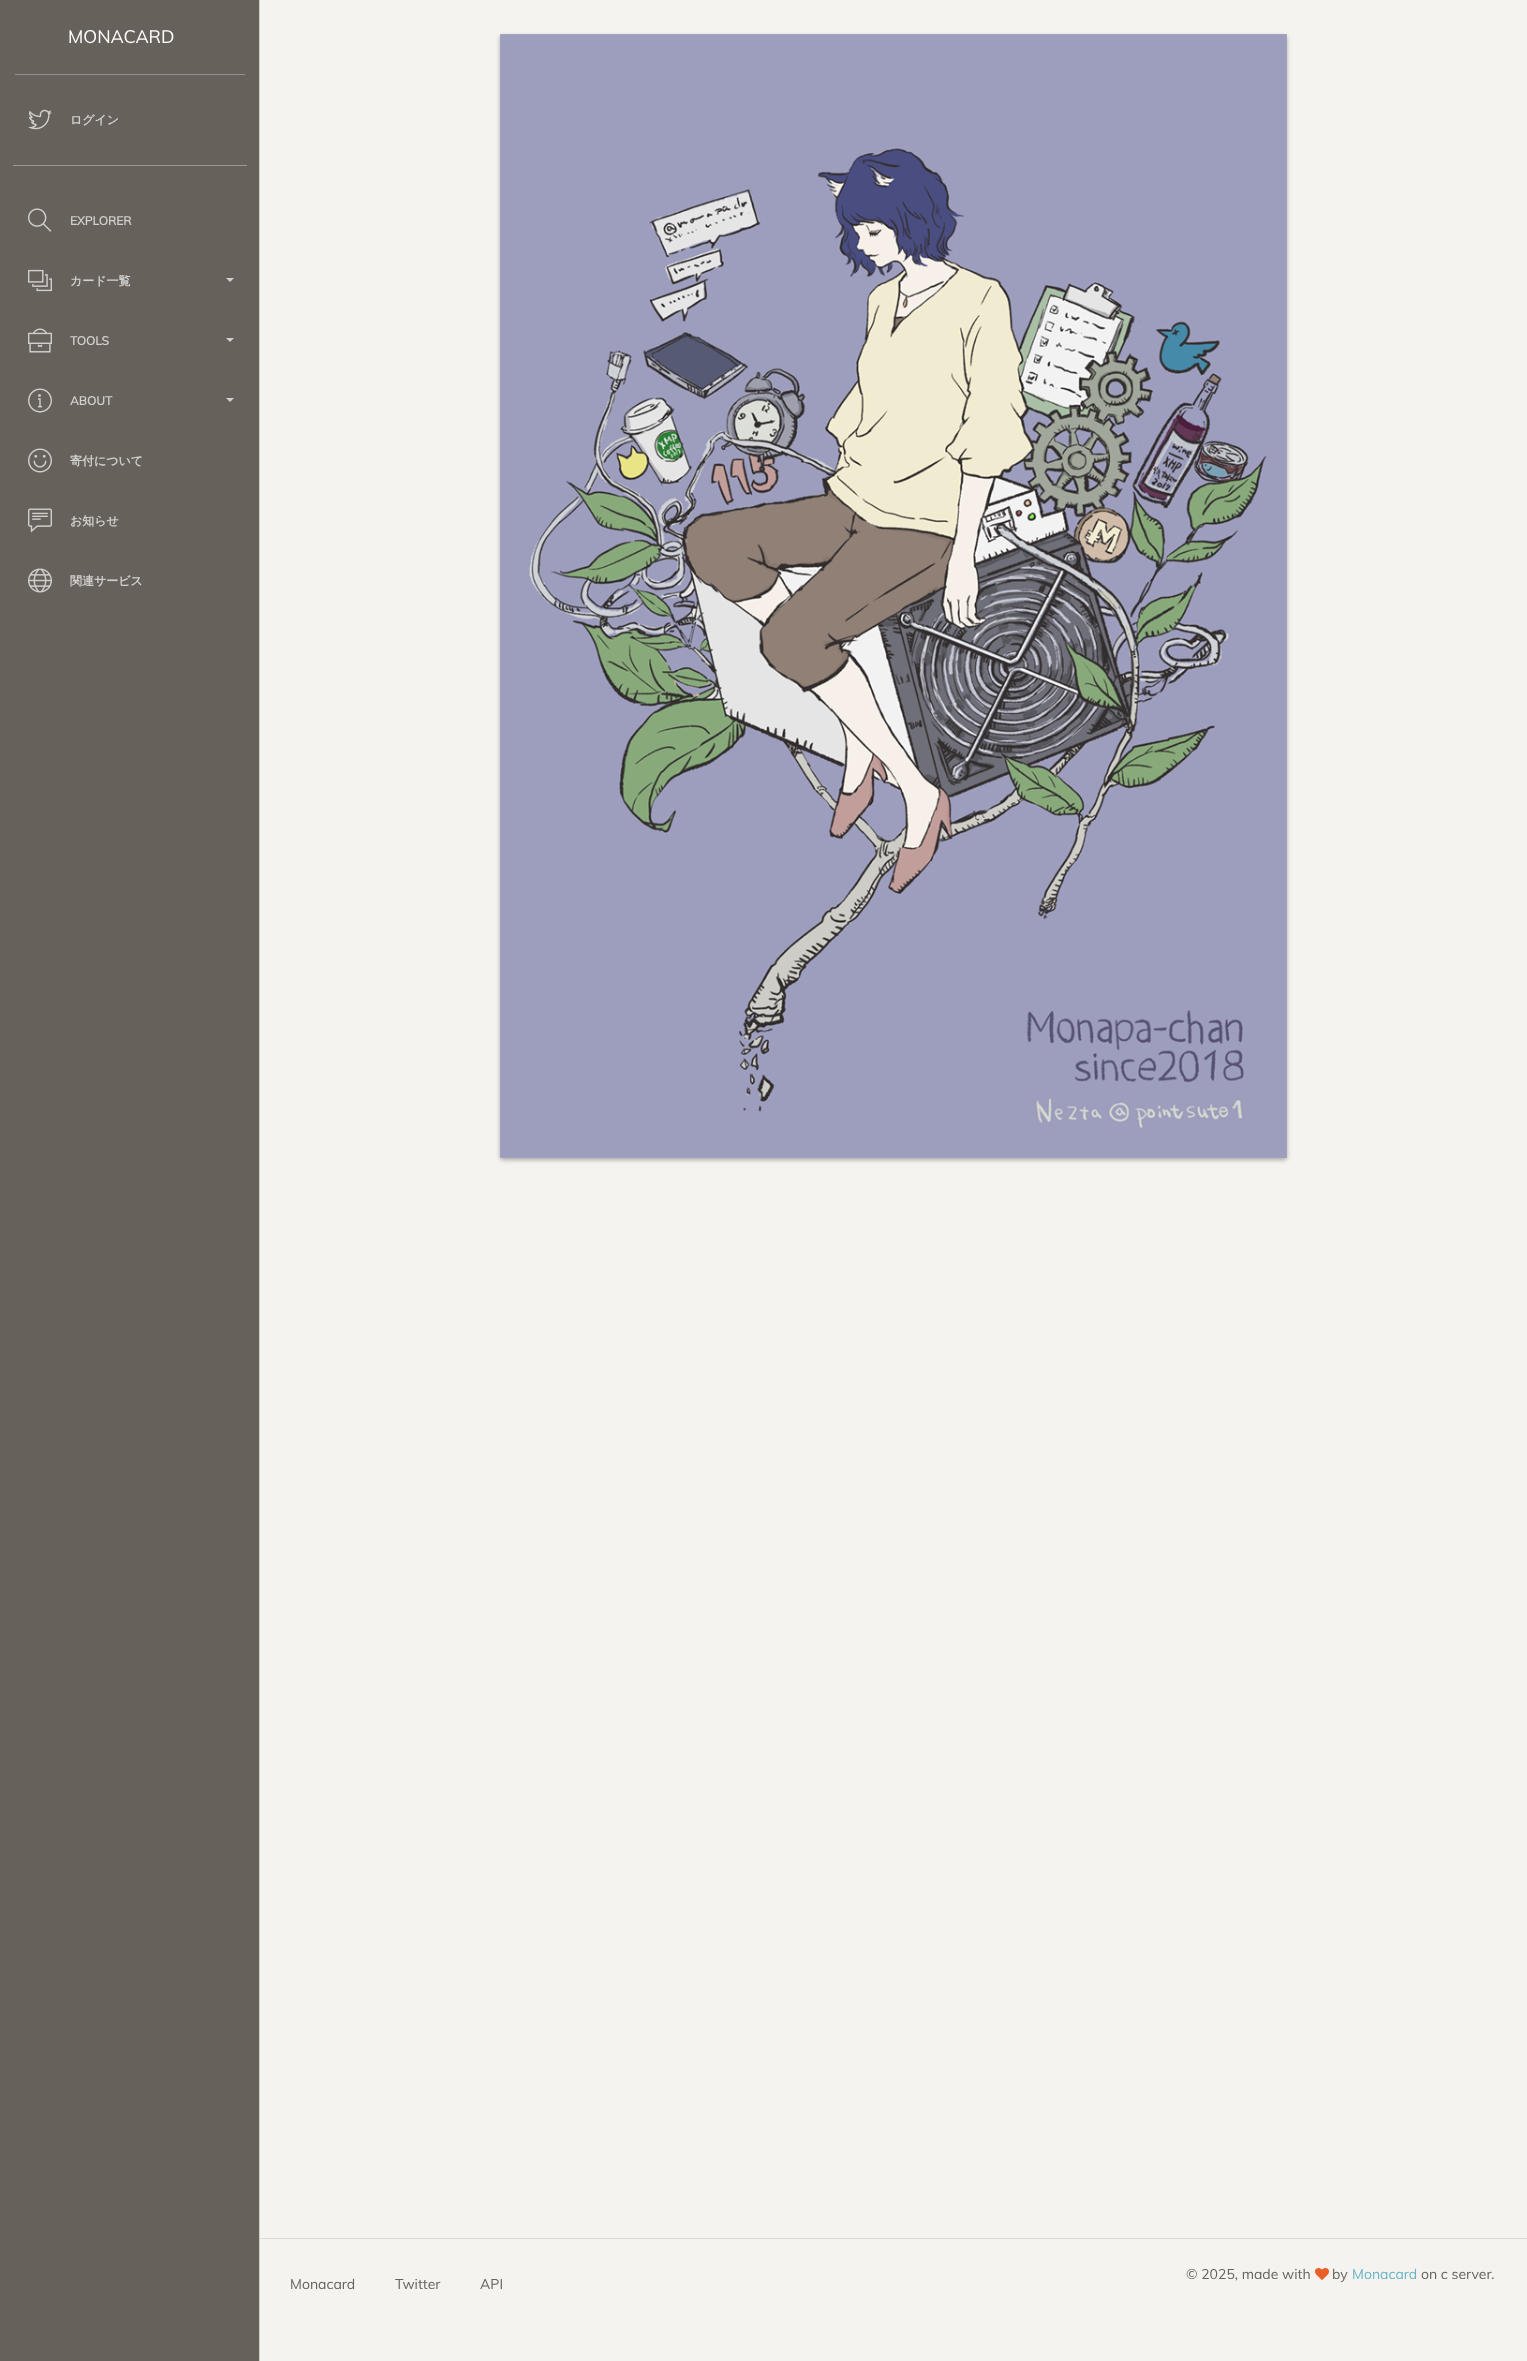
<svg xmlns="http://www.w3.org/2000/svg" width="1527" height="2361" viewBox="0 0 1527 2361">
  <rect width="100%" height="100%" fill="rgb(244,243,239)"/>
  <rect x="0" y="0" width="259" height="2361" fill="rgb(102,97,91)"/>
  <rect x="259" y="0" width="1" height="2361" fill="rgb(207,207,202)"/>
  <text x="68" y="43" font-family="Muli" font-size="18" fill="rgb(255,255,255)">MONACARD</text>
  <rect x="15" y="74" width="230" height="1" fill="rgb(148,144,140)"/>
  <image x="28" y="109" width="24" height="21" href="pic1.png"/>
  <text x="70" y="124" font-family="WenQuanYi Zen Hei" font-size="12" font-weight="bold" fill="rgb(209,208,206)">ログイン</text>
  <rect x="13" y="165" width="234" height="1" fill="rgb(158,152,144)"/>
  <image x="28" y="208" width="24" height="24" href="pic2.png"/>
  <text x="70" y="225" font-family="Muli" font-size="12" font-weight="bold" fill="rgb(209,208,206)">EXPLORER</text>
  <image x="28" y="269" width="24" height="23" href="pic3.png"/>
  <text x="70" y="285" font-family="WenQuanYi Zen Hei" font-size="12" font-weight="bold" fill="rgb(209,208,206)">カード一覧</text>
  <path d="M226 278H234L230 282Z" fill="rgb(209,208,206)"/>
  <image x="28" y="328" width="24" height="25" href="pic4.png"/>
  <text x="70" y="345" font-family="Muli" font-size="12" font-weight="bold" fill="rgb(209,208,206)">TOOLS</text>
  <path d="M226 338H234L230 342Z" fill="rgb(209,208,206)"/>
  <image x="28" y="388" width="24" height="25" href="pic5.png"/>
  <text x="70" y="405" font-family="Muli" font-size="12" font-weight="bold" fill="rgb(209,208,206)">ABOUT</text>
  <path d="M226 398H234L230 402Z" fill="rgb(209,208,206)"/>
  <image x="28" y="448" width="24" height="25" href="pic6.png"/>
  <text x="70" y="465" font-family="WenQuanYi Zen Hei" font-size="12" font-weight="bold" fill="rgb(209,208,206)">寄付について</text>
  <image x="28" y="508" width="24" height="25" href="pic7.png"/>
  <text x="70" y="525" font-family="WenQuanYi Zen Hei" font-size="12" font-weight="bold" fill="rgb(209,208,206)">お知らせ</text>
  <image x="28" y="568" width="24" height="25" href="pic8.png"/>
  <text x="70" y="585" font-family="WenQuanYi Zen Hei" font-size="12" font-weight="bold" fill="rgb(209,208,206)">関連サービス</text>
  <rect x="500" y="36" width="787" height="1124" rx="3" fill="rgba(0,0,0,0.3)" filter="blur(2px)"/>
  <image x="500" y="34" width="787" height="1124" href="pic9.png"/>
  <rect x="260" y="2238" width="1267" height="1" fill="rgb(220,219,215)"/>
  <g font-family="Muli" font-size="14" fill="rgb(102,97,91)">
    <text x="290" y="2289">Monacard</text>
    <text x="395" y="2289">Twitter</text>
    <text x="480" y="2289">API</text>
    <text x="1186" y="2279">© 2025, made with</text>
  </g>
  <image x="1315" y="2268" width="14" height="12" href="pic10.png"/>
  <text x="1332" y="2279" font-family="Muli" font-size="14" fill="rgb(102,97,91)">by</text>
  <text x="1352" y="2279" font-family="Muli" font-size="14" fill="rgb(104,179,200)">Monacard</text>
  <text x="1421" y="2279" font-family="Muli" font-size="14" fill="rgb(102,97,91)">on c server.</text>
</svg>
